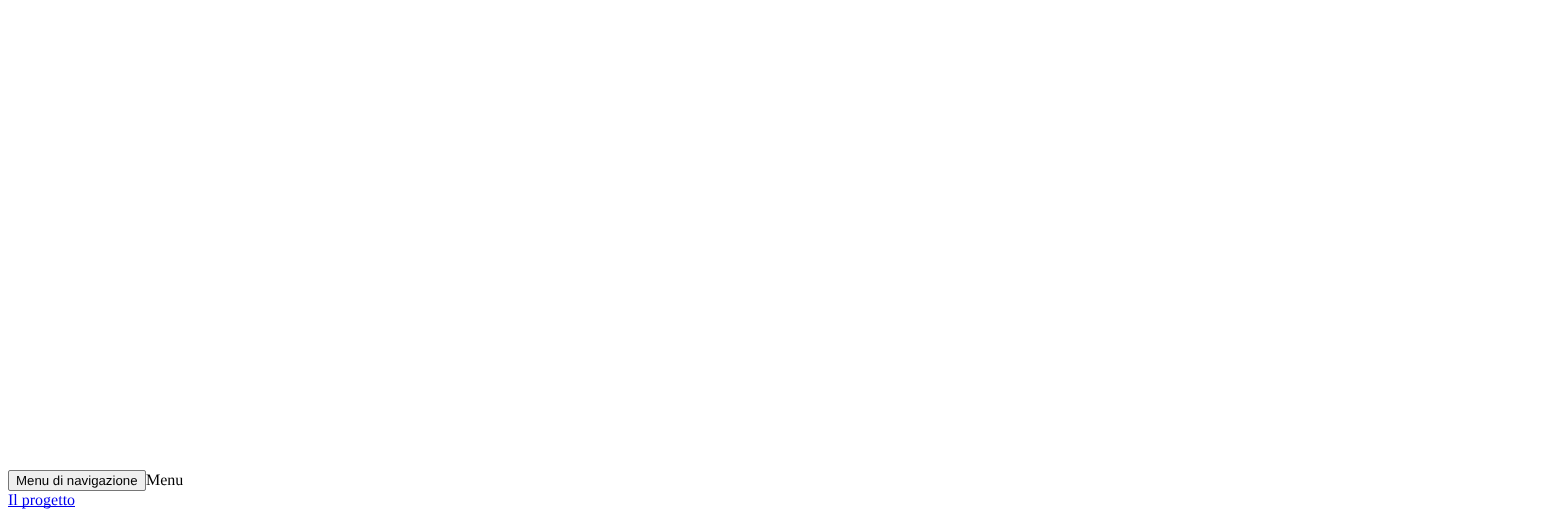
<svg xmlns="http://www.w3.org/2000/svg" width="1542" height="519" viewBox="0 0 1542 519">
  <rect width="100%" height="100%" fill="rgb(255,255,255)"/>
  <rect x="8.5" y="470.5" width="137" height="20" rx="1.5" fill="rgb(239,239,239)" stroke="rgb(118,118,118)"/>
  <text x="16" y="485" font-family="Liberation Sans" font-size="13.25" fill="rgb(0,0,0)">Menu di navigazione</text>
  <text x="146" y="485" font-family="Liberation Serif" font-size="16" fill="rgb(0,0,0)">Menu</text>
  <rect x="8" y="506" width="67" height="1" fill="rgb(0,0,238)"/>
  <text x="8" y="505" font-family="Liberation Serif" font-size="16" fill="rgb(0,0,238)">Il progetto</text>
</svg>
